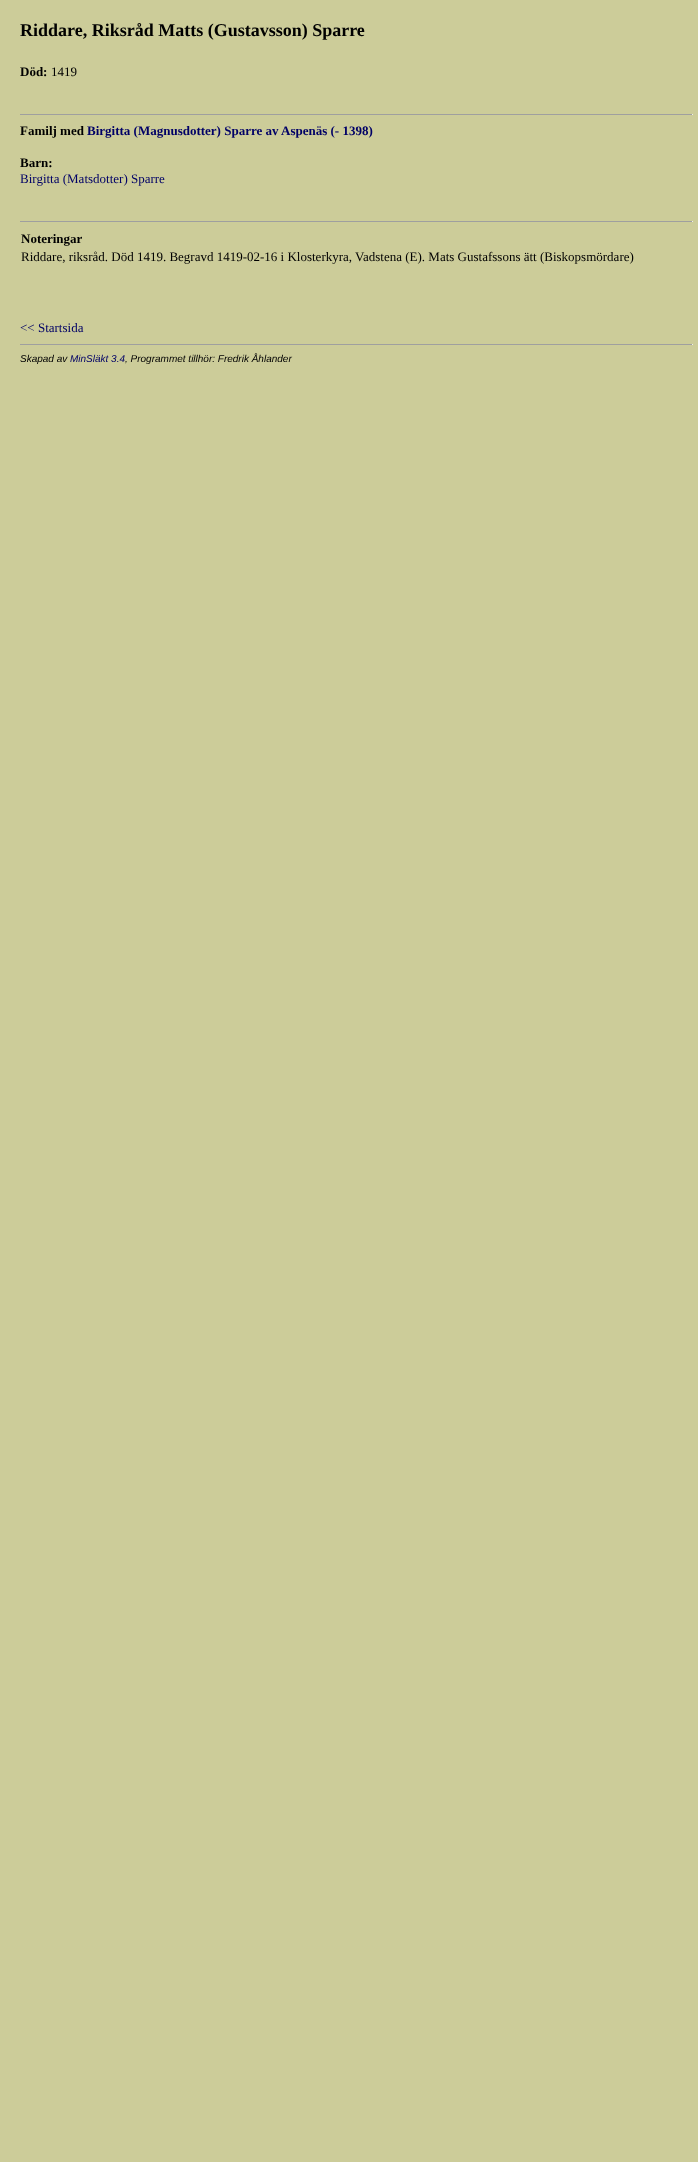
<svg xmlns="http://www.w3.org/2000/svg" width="698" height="2162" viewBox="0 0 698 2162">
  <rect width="100%" height="100%" fill="rgb(204,204,153)"/>
  <text x="20" y="36" font-family="Liberation Serif" font-size="18" font-weight="bold" fill="rgb(0,0,0)">Riddare, Riksråd Matts (Gustavsson) Sparre</text>
  <text x="20" y="76" font-family="Liberation Serif" font-size="13" font-weight="bold" fill="rgb(0,0,0)">Död:</text>
  <text x="51" y="76" font-family="Liberation Serif" font-size="13" fill="rgb(0,0,0)">1419</text>
  <rect x="20" y="114" width="673" height="1" fill="rgb(159,159,159)"/>
  <rect x="692" y="114" width="1" height="1" fill="rgb(238,238,238)"/>
  <text x="20" y="135" font-family="Liberation Serif" font-size="13" font-weight="bold" fill="rgb(0,0,0)">Familj med</text>
  <text x="87" y="135" font-family="Liberation Serif" font-size="13" font-weight="bold" fill="rgb(0,0,102)">Birgitta (Magnusdotter) Sparre av Aspenäs (- 1398)</text>
  <text x="20" y="167" font-family="Liberation Serif" font-size="13" font-weight="bold" fill="rgb(0,0,0)">Barn:</text>
  <text x="20" y="183" font-family="Liberation Serif" font-size="13" fill="rgb(0,0,102)">Birgitta (Matsdotter) Sparre</text>
  <rect x="20" y="221" width="673" height="1" fill="rgb(159,159,159)"/>
  <rect x="692" y="221" width="1" height="1" fill="rgb(238,238,238)"/>
  <text x="21" y="243" font-family="Liberation Serif" font-size="13" font-weight="bold" fill="rgb(0,0,0)">Noteringar</text>
  <text x="21" y="261" font-family="Liberation Serif" font-size="13" fill="rgb(0,0,0)">Riddare, riksråd. Död 1419. Begravd 1419-02-16 i Klosterkyra, Vadstena (E). Mats Gustafssons ätt (Biskopsmördare)</text>
  <text x="20" y="332" font-family="Liberation Serif" font-size="13" fill="rgb(0,0,102)">&lt;&lt; Startsida</text>
  <rect x="20" y="344" width="673" height="1" fill="rgb(159,159,159)"/>
  <rect x="692" y="344" width="1" height="1" fill="rgb(238,238,238)"/>
  <text x="20" y="362" font-family="Liberation Sans" font-size="10" font-style="italic" fill="rgb(0,0,0)">Skapad av</text>
  <text x="70" y="362" font-family="Liberation Sans" font-size="10" font-style="italic" fill="rgb(0,0,102)">MinSläkt 3.4</text>
  <text x="125" y="362" font-family="Liberation Sans" font-size="10" font-style="italic" fill="rgb(0,0,0)">, Programmet tillhör: Fredrik Åhlander</text>
</svg>
